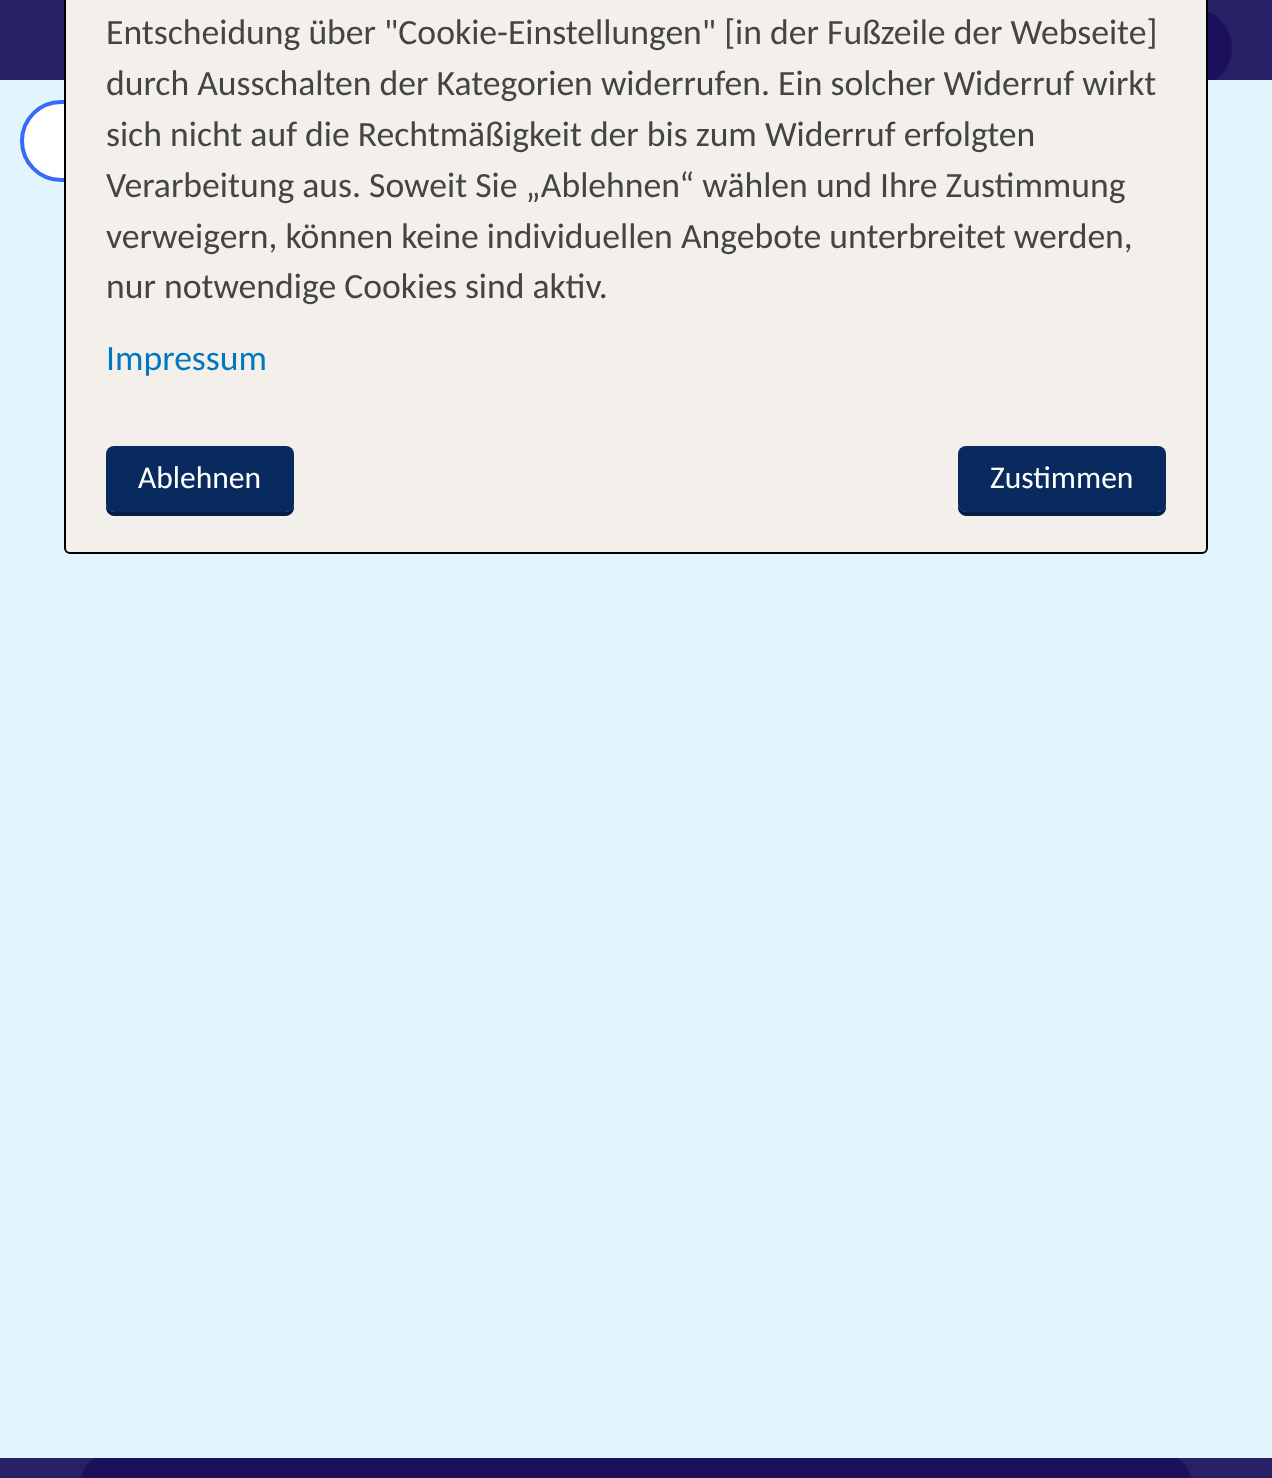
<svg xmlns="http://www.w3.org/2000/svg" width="1272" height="1478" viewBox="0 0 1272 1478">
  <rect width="100%" height="100%" fill="rgb(40,32,100)"/>
  <rect x="874" y="8" width="358" height="80" rx="40" fill="rgb(26,17,90)"/>
  <rect x="80" y="1450" width="1112" height="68" rx="40" fill="rgb(26,17,90)"/>
  <rect x="0" y="80" width="1272" height="1378" fill="rgb(226,245,253)"/>
  <rect x="22" y="102" width="276" height="78" rx="39" fill="rgb(255,255,255)" stroke="rgb(55,106,246)" stroke-width="4"/>
  <rect x="65" y="-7" width="1142" height="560" rx="5" fill="rgb(243,240,236)" stroke="rgb(0,0,0)" stroke-width="2"/>
  <g font-family="Carlito" font-size="35.65" fill="rgb(68,68,68)">
    <text>
      <tspan x="106" y="44">Entscheidung über "Cookie-Einstellungen" [in der Fußzeile der Webseite]</tspan>
      <tspan x="106" y="95">durch Ausschalten der Kategorien widerrufen. Ein solcher Widerruf wirkt</tspan>
      <tspan x="106" y="146">sich nicht auf die Rechtmäßigkeit der bis zum Widerruf erfolgten</tspan>
      <tspan x="106" y="197">Verarbeitung aus. Soweit Sie „Ablehnen“ wählen und Ihre Zustimmung</tspan>
      <tspan x="106" y="248">verweigern, können keine individuellen Angebote unterbreitet werden,</tspan>
      <tspan x="106" y="298">nur notwendige Cookies sind aktiv.</tspan>
    </text>
  </g>
  <text x="106" y="370" font-family="Carlito" font-size="35.65" fill="rgb(0,119,191)">Impressum</text>
  <path d="M106 504V508C106 512 110 516 114 516H286C290 516 294 512 294 508V504C294 508 290 512 286 512H114C110 512 106 508 106 504Z" fill="rgb(0,30,70)"/>
  <rect x="106" y="446" width="188" height="66" rx="8" fill="rgb(9,42,94)"/>
  <text x="138" y="488" font-family="Carlito" font-size="31.5" fill="rgb(255,255,255)">Ablehnen</text>
  <path d="M958 504V508C958 512 962 516 966 516H1158C1162 516 1166 512 1166 508V504C1166 508 1162 512 1158 512H966C962 512 958 508 958 504Z" fill="rgb(0,30,70)"/>
  <rect x="958" y="446" width="208" height="66" rx="8" fill="rgb(9,42,94)"/>
  <text x="990" y="488" font-family="Carlito" font-size="31.5" fill="rgb(255,255,255)">Zustimmen</text>
</svg>
